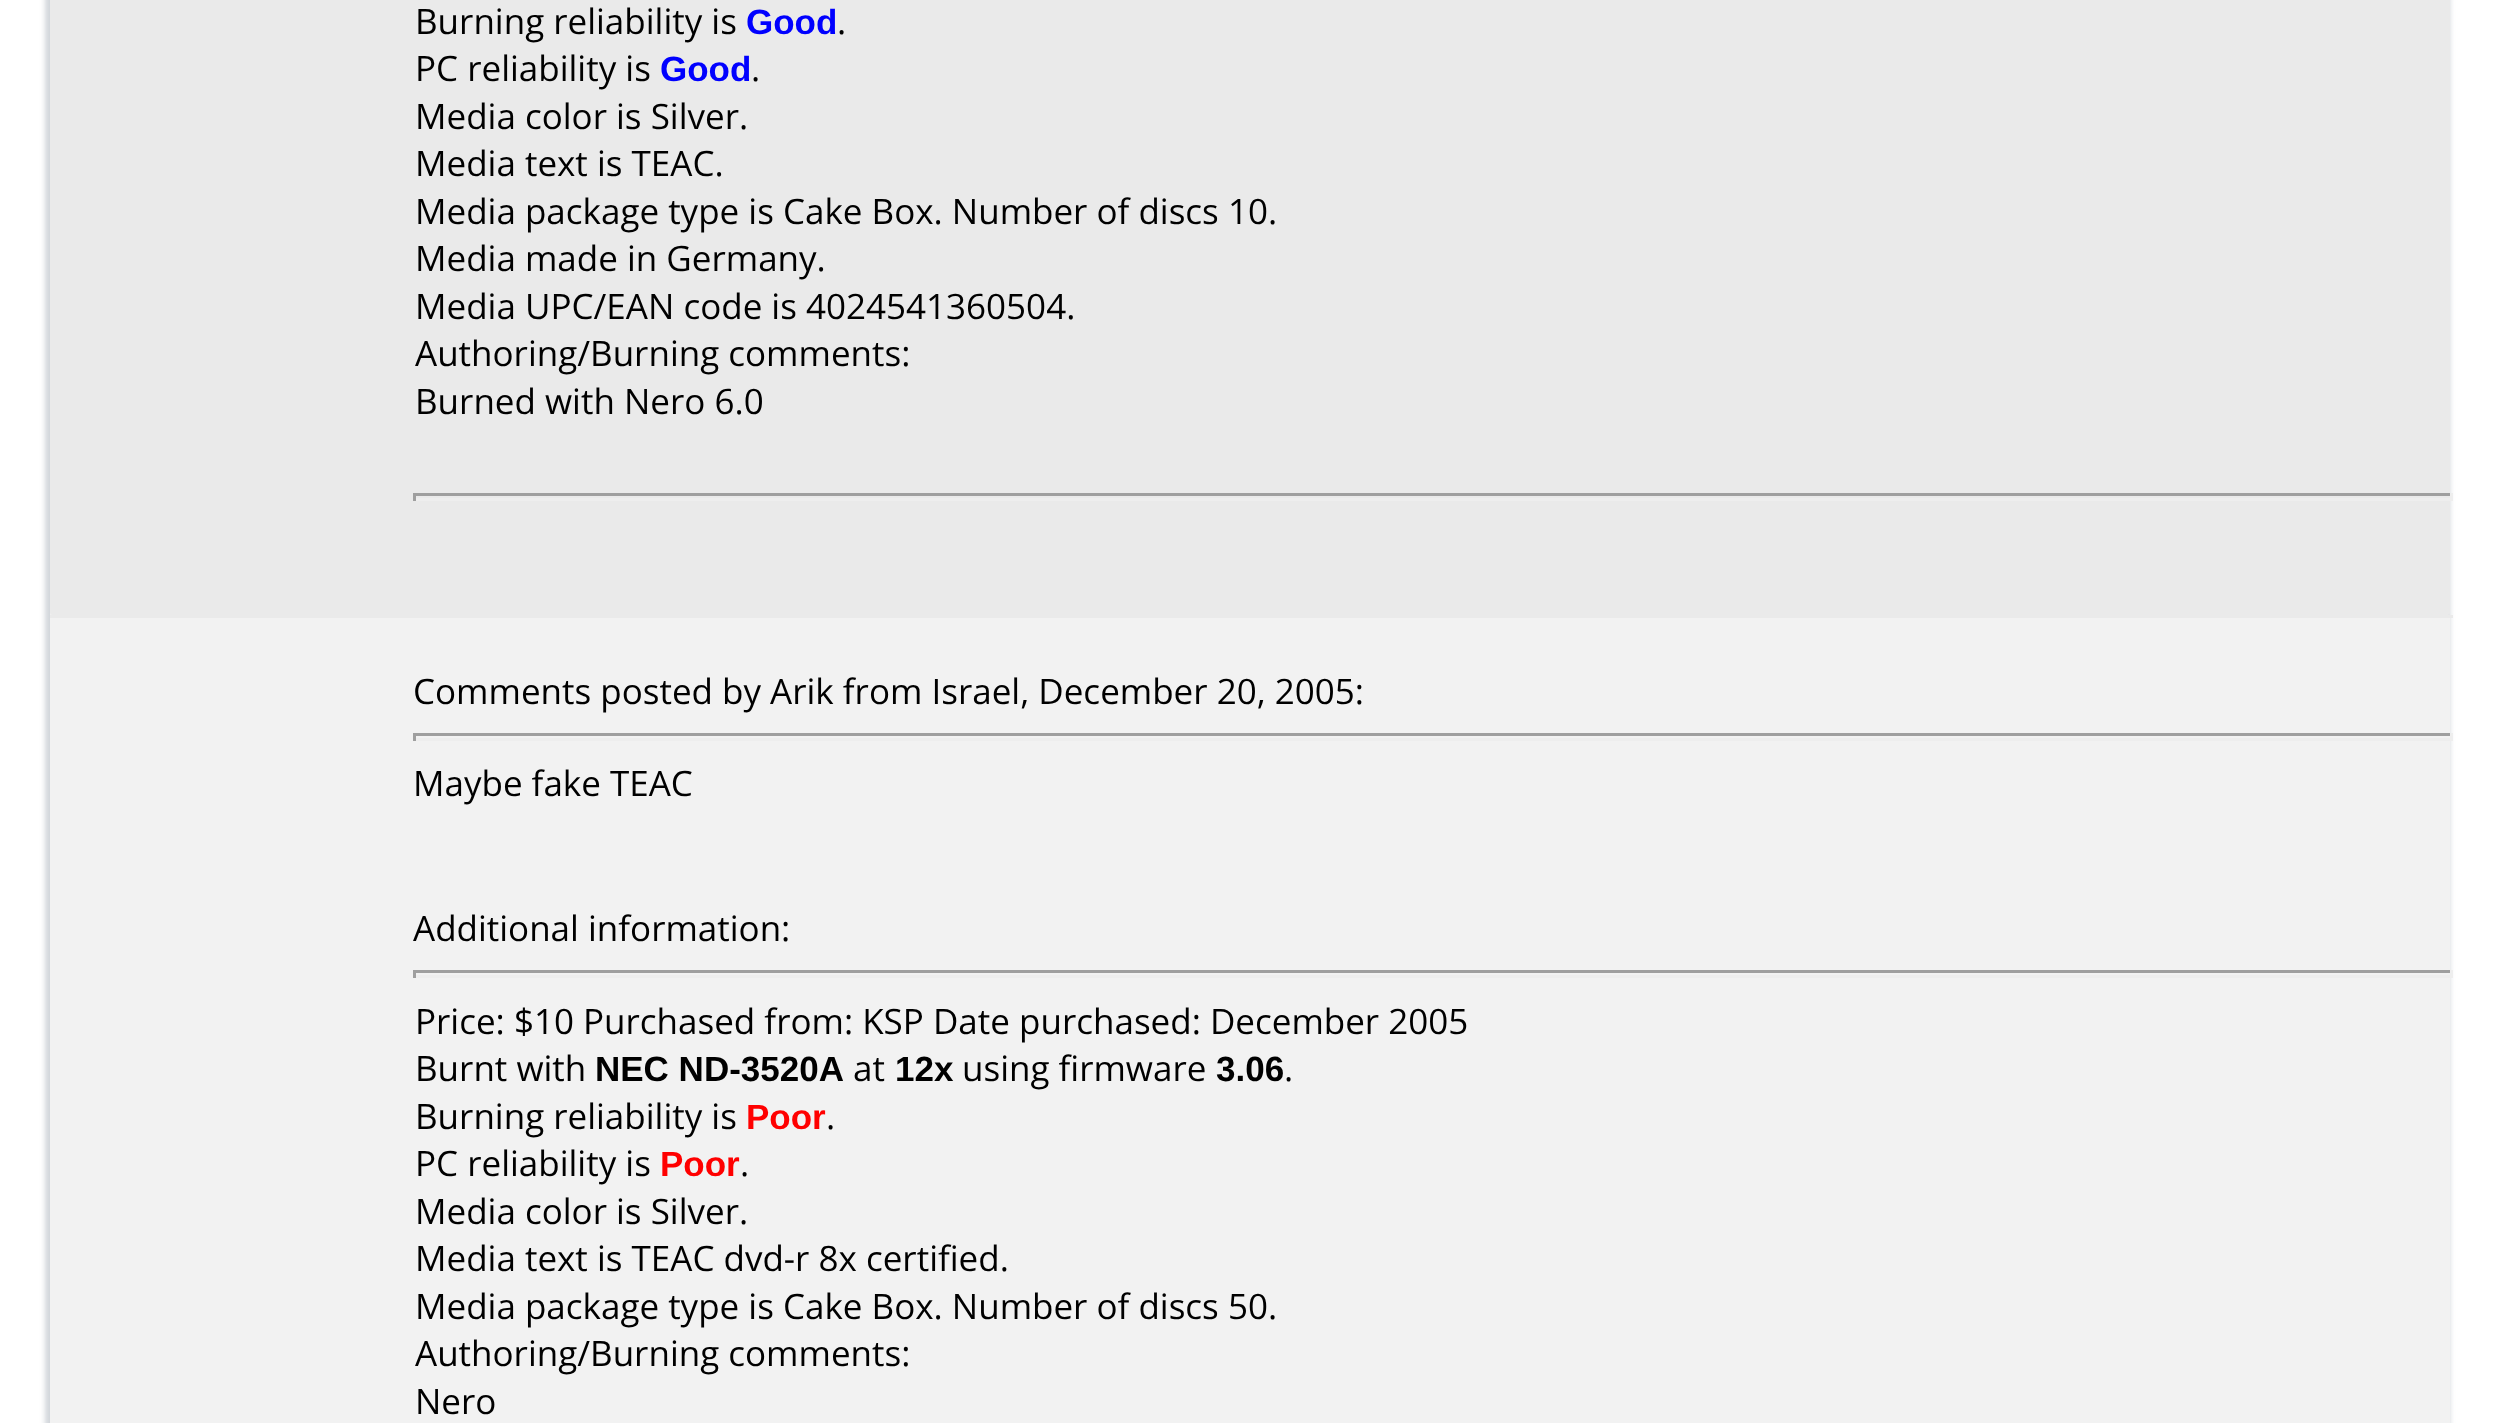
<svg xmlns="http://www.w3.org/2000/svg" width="2498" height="1423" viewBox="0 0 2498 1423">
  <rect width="100%" height="100%" fill="rgb(255,255,255)"/>
  <rect x="45" y="-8" width="2405" height="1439" fill="rgba(203,208,214,0.87)" filter="blur(2.5px)"/>
  <rect x="50" y="612" width="3" height="3" fill="rgb(242,242,242)"/>
  <rect x="50" y="-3" width="2400" height="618" rx="2.5" fill="rgb(234,234,234)"/>
  <rect x="50" y="615" width="2403" height="3" fill="rgb(234,234,234)"/>
  <text x="415" y="34" font-family="Open Sans" font-size="35" fill="rgb(0,0,0)">Burning reliability is</text>
  <text x="746" y="34" font-family="Liberation Sans" font-size="35" font-weight="bold" fill="rgb(0,0,255)">Good</text>
  <g font-family="Open Sans" font-size="35" fill="rgb(0,0,0)">
    <text x="837" y="34">.</text>
    <text x="415" y="81">PC reliability is</text>
  </g>
  <text x="660" y="81" font-family="Liberation Sans" font-size="35" font-weight="bold" fill="rgb(0,0,255)">Good</text>
  <g font-family="Open Sans" font-size="35" fill="rgb(0,0,0)">
    <text x="751" y="81">.</text>
    <text>
      <tspan x="415" y="129">Media color is Silver.</tspan>
      <tspan x="415" y="176">Media text is TEAC.</tspan>
      <tspan x="415" y="224">Media package type is Cake Box. Number of discs 10.</tspan>
      <tspan x="415" y="271">Media made in Germany.</tspan>
      <tspan x="415" y="319">Media UPC/EAN code is 4024541360504.</tspan>
      <tspan x="415" y="366">Authoring/Burning comments:</tspan>
      <tspan x="415" y="414">Burned with Nero 6.0</tspan>
    </text>
  </g>
  <rect x="413" y="493" width="2040" height="3" fill="rgb(159,159,159)"/>
  <rect x="2450" y="493" width="3" height="8" fill="rgb(238,238,238)"/>
  <rect x="413" y="498" width="2040" height="3" fill="rgb(238,238,238)"/>
  <rect x="413" y="493" width="3" height="8" fill="rgb(159,159,159)"/>
  <rect x="50" y="618" width="2400" height="805" fill="rgb(242,242,242)"/>
  <text x="413" y="704" font-family="Open Sans" font-size="35" fill="rgb(0,0,0)">Comments posted by Arik from Israel, December 20, 2005:</text>
  <rect x="413" y="733" width="2040" height="3" fill="rgb(159,159,159)"/>
  <rect x="2450" y="733" width="3" height="8" fill="rgb(238,238,238)"/>
  <rect x="413" y="738" width="2040" height="3" fill="rgb(238,238,238)"/>
  <rect x="413" y="733" width="3" height="8" fill="rgb(159,159,159)"/>
  <g font-family="Open Sans" font-size="35" fill="rgb(0,0,0)">
    <text x="413" y="796">Maybe fake TEAC</text>
    <text x="413" y="941">Additional information:</text>
  </g>
  <rect x="413" y="970" width="2040" height="3" fill="rgb(159,159,159)"/>
  <rect x="2450" y="970" width="3" height="8" fill="rgb(238,238,238)"/>
  <rect x="413" y="975" width="2040" height="3" fill="rgb(238,238,238)"/>
  <rect x="413" y="970" width="3" height="8" fill="rgb(159,159,159)"/>
  <g font-family="Open Sans" font-size="35" fill="rgb(0,0,0)">
    <text>
      <tspan x="415" y="1034">Price: $10 Purchased from: KSP Date purchased: December 2005</tspan>
      <tspan x="415" y="1081">Burnt with</tspan>
    </text>
  </g>
  <text x="595" y="1081" font-family="Liberation Sans" font-size="35" font-weight="bold" fill="rgb(0,0,0)">NEC ND-3520A</text>
  <text x="853" y="1081" font-family="Open Sans" font-size="35" fill="rgb(0,0,0)">at</text>
  <text x="895" y="1081" font-family="Liberation Sans" font-size="35" font-weight="bold" fill="rgb(0,0,0)">12x</text>
  <text x="962" y="1081" font-family="Open Sans" font-size="35" fill="rgb(0,0,0)">using firmware</text>
  <text x="1216" y="1081" font-family="Liberation Sans" font-size="35" font-weight="bold" fill="rgb(0,0,0)">3.06</text>
  <g font-family="Open Sans" font-size="35" fill="rgb(0,0,0)">
    <text x="1284" y="1081">.</text>
    <text x="415" y="1129">Burning reliability is</text>
  </g>
  <text x="746" y="1129" font-family="Liberation Sans" font-size="35" font-weight="bold" fill="rgb(255,0,0)">Poor</text>
  <g font-family="Open Sans" font-size="35" fill="rgb(0,0,0)">
    <text x="826" y="1129">.</text>
    <text x="415" y="1176">PC reliability is</text>
  </g>
  <text x="660" y="1176" font-family="Liberation Sans" font-size="35" font-weight="bold" fill="rgb(255,0,0)">Poor</text>
  <g font-family="Open Sans" font-size="35" fill="rgb(0,0,0)">
    <text x="740" y="1176">.</text>
    <text>
      <tspan x="415" y="1224">Media color is Silver.</tspan>
      <tspan x="415" y="1271">Media text is TEAC dvd-r 8x certified.</tspan>
      <tspan x="415" y="1319">Media package type is Cake Box. Number of discs 50.</tspan>
      <tspan x="415" y="1366">Authoring/Burning comments:</tspan>
      <tspan x="415" y="1414">Nero</tspan>
    </text>
  </g>
</svg>
